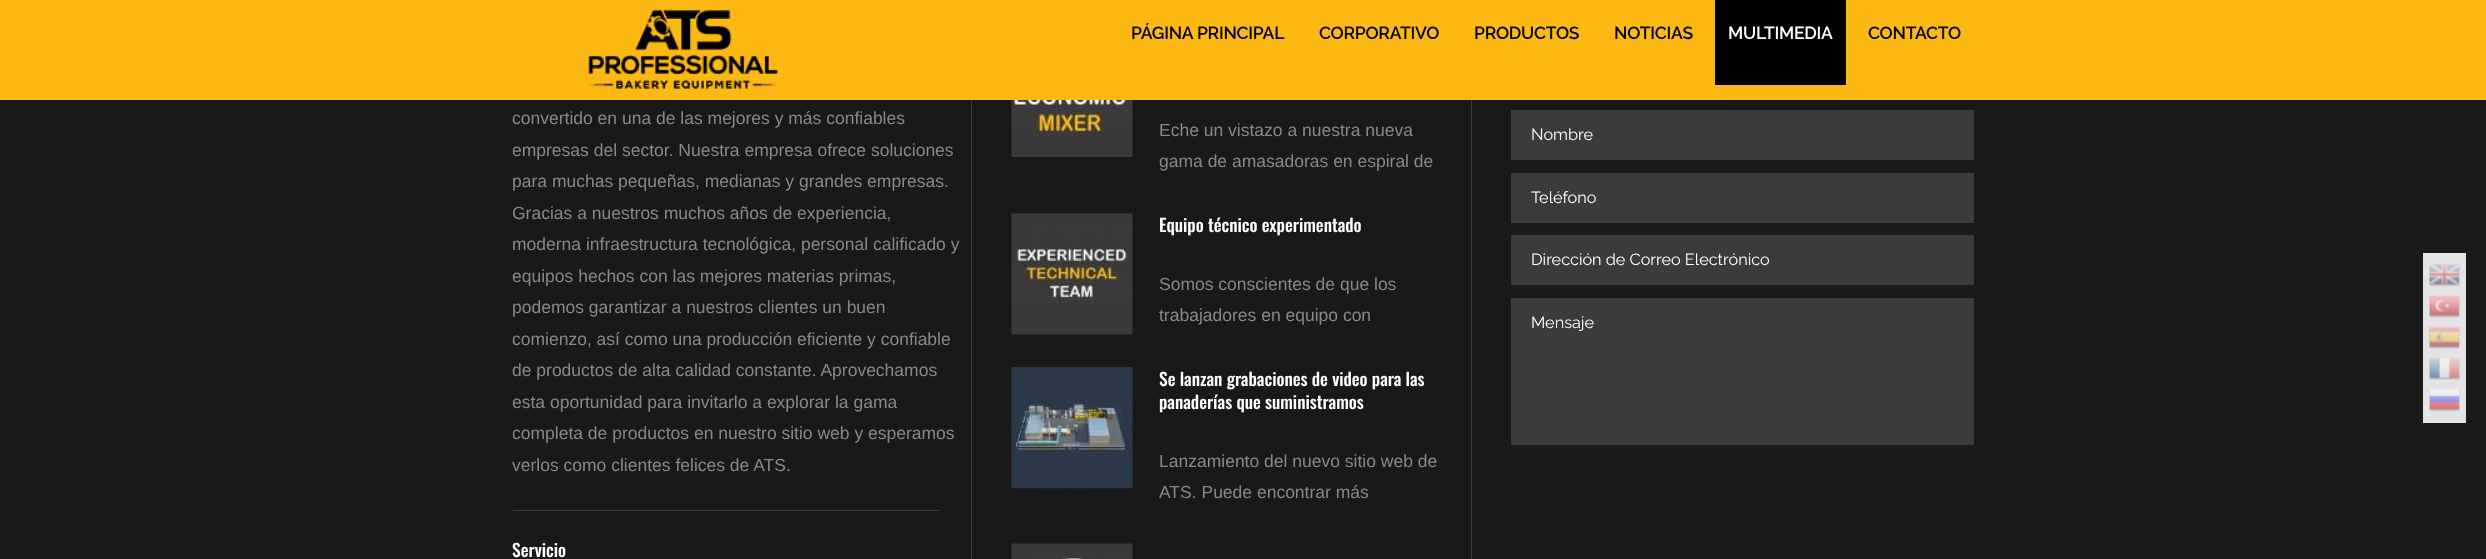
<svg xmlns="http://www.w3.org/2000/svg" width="2486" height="559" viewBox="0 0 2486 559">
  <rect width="100%" height="100%" fill="rgb(25,25,25)"/>
  <rect x="0" y="0" width="2486" height="100" fill="rgb(253,185,19)"/>
  <image x="588" y="9" width="190" height="80" href="pic1.png"/>
  <g font-family="Raleway" font-size="17.5" font-weight="600" letter-spacing="-0.25" fill="rgb(0,0,0)">
    <text x="1131" y="39">PÁGINA PRINCIPAL</text>
    <text x="1319" y="39">CORPORATIVO</text>
    <text x="1474" y="39">PRODUCTOS</text>
    <text x="1614" y="39">NOTICIAS</text>
  </g>
  <rect x="1715" y="0" width="131" height="85" fill="rgb(0,0,0)"/>
  <text x="1728" y="39" font-family="Raleway" font-size="17.5" font-weight="600" letter-spacing="-0.25" fill="rgb(255,255,255)">MULTIMEDIA</text>
  <text x="1868" y="39" font-family="Raleway" font-size="17.5" font-weight="600" letter-spacing="-0.25" fill="rgb(0,0,0)">CONTACTO</text>
  <g font-family="Liberation Sans" font-size="17.5" fill="rgb(136,136,136)">
    <text>
      <tspan x="512" y="124">convertido en una de las mejores y más confiables</tspan>
      <tspan x="512" y="156">empresas del sector. Nuestra empresa ofrece soluciones</tspan>
      <tspan x="512" y="187">para muchas pequeñas, medianas y grandes empresas.</tspan>
      <tspan x="512" y="219">Gracias a nuestros muchos años de experiencia,</tspan>
      <tspan x="512" y="250">moderna infraestructura tecnológica, personal calificado y</tspan>
      <tspan x="512" y="282">equipos hechos con las mejores materias primas,</tspan>
      <tspan x="512" y="313">podemos garantizar a nuestros clientes un buen</tspan>
      <tspan x="512" y="345">comienzo, así como una producción eficiente y confiable</tspan>
      <tspan x="512" y="376">de productos de alta calidad constante. Aprovechamos</tspan>
      <tspan x="512" y="408">esta oportunidad para invitarlo a explorar la gama</tspan>
      <tspan x="512" y="439">completa de productos en nuestro sitio web y esperamos</tspan>
      <tspan x="512" y="471">verlos como clientes felices de ATS.</tspan>
    </text>
  </g>
  <rect x="971" y="100" width="1" height="459" fill="rgb(59,59,59)"/>
  <rect x="513" y="510" width="426" height="1" fill="rgb(59,59,59)"/>
  <text x="512" y="557" font-family="Oswald" font-size="17.5" font-weight="500" fill="rgb(255,255,255)">Servicio</text>
  <image x="1011" y="100" width="122" height="57" href="pic2.png"/>
  <g font-family="Liberation Sans" font-size="17.5" fill="rgb(136,136,136)">
    <text>
      <tspan x="1159" y="136">Eche un vistazo a nuestra nueva</tspan>
      <tspan x="1159" y="167">gama de amasadoras en espiral de</tspan>
    </text>
  </g>
  <rect x="1471" y="100" width="1" height="459" fill="rgb(59,59,59)"/>
  <image x="1011" y="213" width="122" height="122" href="pic3.png"/>
  <text x="1159" y="232" font-family="Oswald" font-size="17.5" font-weight="500" fill="rgb(255,255,255)">Equipo técnico experimentado</text>
  <g font-family="Liberation Sans" font-size="17.5" fill="rgb(136,136,136)">
    <text>
      <tspan x="1159" y="290">Somos conscientes de que los</tspan>
      <tspan x="1159" y="321">trabajadores en equipo con</tspan>
    </text>
  </g>
  <image x="1011" y="367" width="122" height="122" href="pic4.png"/>
  <g font-family="Oswald" font-size="17.5" font-weight="500" fill="rgb(255,255,255)">
    <text>
      <tspan x="1159" y="386">Se lanzan grabaciones de video para las</tspan>
      <tspan x="1159" y="409">panaderías que suministramos</tspan>
    </text>
  </g>
  <g font-family="Liberation Sans" font-size="17.5" fill="rgb(136,136,136)">
    <text>
      <tspan x="1159" y="467">Lanzamiento del nuevo sitio web de</tspan>
      <tspan x="1159" y="498">ATS. Puede encontrar más</tspan>
    </text>
  </g>
  <image x="1011" y="543" width="122" height="16" href="pic5.png"/>
  <rect x="1511" y="110" width="463" height="50" fill="rgb(59,59,59)"/>
  <text x="1531" y="140" font-family="Raleway" font-size="16.25" fill="rgb(255,255,255)">Nombre</text>
  <rect x="1511" y="173" width="463" height="50" fill="rgb(59,59,59)"/>
  <text x="1531" y="203" font-family="Raleway" font-size="16.25" fill="rgb(255,255,255)">Teléfono</text>
  <rect x="1511" y="235" width="463" height="50" fill="rgb(59,59,59)"/>
  <text x="1531" y="265" font-family="Raleway" font-size="16.25" fill="rgb(255,255,255)">Dirección de Correo Electrónico</text>
  <rect x="1511" y="298" width="463" height="147" fill="rgb(59,59,59)"/>
  <text x="1531" y="328" font-family="Raleway" font-size="16.25" fill="rgb(255,255,255)">Mensaje</text>
  <rect x="2423" y="253" width="43" height="170" fill="rgb(228,228,228)"/>
  <image x="2429" y="264" width="31" height="23" href="pic6.png"/>
  <image x="2429" y="295" width="31" height="23" href="pic7.png"/>
  <image x="2429" y="326" width="31" height="23" href="pic8.png"/>
  <image x="2429" y="357" width="31" height="23" href="pic9.png"/>
  <image x="2429" y="389" width="31" height="23" href="pic10.png"/>
</svg>
